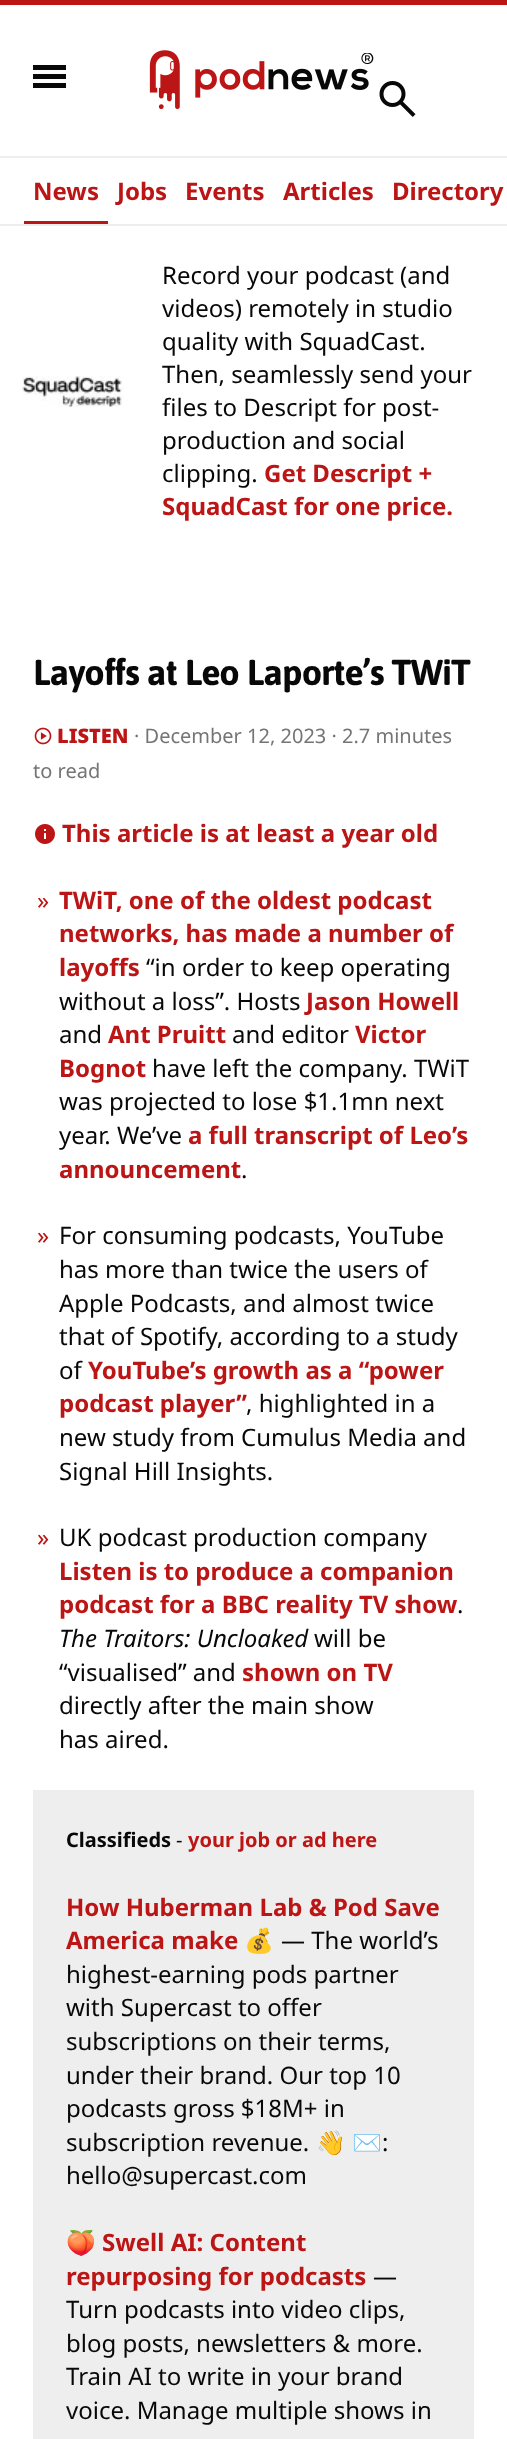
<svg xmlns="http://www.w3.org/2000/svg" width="507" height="2439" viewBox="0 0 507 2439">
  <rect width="100%" height="100%" fill="rgb(255,255,255)"/>
  <rect x="0" y="0" width="507" height="5" fill="rgb(188,21,21)"/>
  <rect x="33" y="65" width="33" height="5" fill="rgb(8,8,8)"/>
  <rect x="33" y="74" width="33" height="5" fill="rgb(8,8,8)"/>
  <rect x="33" y="83" width="33" height="5" fill="rgb(8,8,8)"/>
  <image x="149" y="50" width="31" height="60" href="pic1.png"/>
  <image x="195" y="53" width="179" height="45" href="pic2.png"/>
  <image x="379" y="81" width="37" height="36" href="pic3.png"/>
  <rect x="0" y="156" width="507" height="2" fill="rgb(238,238,238)"/>
  <rect x="0" y="224" width="507" height="2" fill="rgb(238,238,238)"/>
  <rect x="24" y="221" width="84" height="3" fill="rgb(188,21,21)"/>
  <g font-family="Noto Sans" font-size="24" font-weight="bold" fill="rgb(188,21,21)">
    <text x="33" y="200">News</text>
    <text x="117" y="200">Jobs</text>
    <text x="185" y="200">Events</text>
    <text x="283" y="200">Articles</text>
    <text x="392" y="200">Directory</text>
  </g>
  <image x="22" y="376" width="102" height="31" href="pic4.png"/>
  <g font-family="Noto Sans" font-size="24" fill="rgb(8,8,8)">
    <text>
      <tspan x="162" y="284">Record your podcast (and</tspan>
      <tspan x="162" y="317">videos) remotely in studio</tspan>
      <tspan x="162" y="350">quality with SquadCast.</tspan>
      <tspan x="162" y="383">Then, seamlessly send your</tspan>
      <tspan x="162" y="416">files to Descript for post-</tspan>
      <tspan x="162" y="449">production and social</tspan>
      <tspan x="162" y="482">clipping.</tspan>
    </text>
  </g>
  <g font-family="Noto Sans" font-size="24" font-weight="bold" fill="rgb(188,21,21)">
    <text x="264" y="482">Get Descript +</text>
    <text x="162" y="515">SquadCast for one price.</text>
  </g>
  <text x="33" y="685" font-family="Asap" font-size="36" font-weight="bold" letter-spacing="-0.9" fill="rgb(8,8,8)">Layoffs at Leo Laporte’s TWiT</text>
  <image x="34" y="727" width="18" height="18" href="pic5.png"/>
  <text x="57" y="743" font-family="Noto Sans" font-size="20" font-weight="900" fill="rgb(188,21,21)">LISTEN</text>
  <g font-family="Noto Sans" font-size="20" fill="rgb(117,117,117)">
    <text x="134" y="743">· December 12, 2023 · 2.7 minutes</text>
    <text x="33" y="778">to read</text>
  </g>
  <image x="35" y="824" width="20" height="20" href="pic6.png"/>
  <text x="62" y="842" font-family="Noto Sans" font-size="24" font-weight="bold" fill="rgb(188,21,21)">This article is at least a year old</text>
  <text x="37" y="909" font-family="Noto Sans" font-size="24" fill="rgb(188,21,21)">»</text>
  <g font-family="Noto Sans" font-size="24" font-weight="bold" fill="rgb(188,21,21)">
    <text>
      <tspan x="59" y="909">TWiT, one of the oldest podcast</tspan>
      <tspan x="59" y="942">networks, has made a number of</tspan>
      <tspan x="59" y="976">layoffs</tspan>
    </text>
  </g>
  <g font-family="Noto Sans" font-size="24" fill="rgb(8,8,8)">
    <text x="146" y="976">“in order to keep operating</text>
    <text x="59" y="1010">without a loss”. Hosts</text>
  </g>
  <text x="306" y="1010" font-family="Noto Sans" font-size="24" font-weight="bold" fill="rgb(188,21,21)">Jason Howell</text>
  <text x="59" y="1043" font-family="Noto Sans" font-size="24" fill="rgb(8,8,8)">and</text>
  <text x="108" y="1043" font-family="Noto Sans" font-size="24" font-weight="bold" fill="rgb(188,21,21)">Ant Pruitt</text>
  <text x="232" y="1043" font-family="Noto Sans" font-size="24" fill="rgb(8,8,8)">and editor</text>
  <g font-family="Noto Sans" font-size="24" font-weight="bold" fill="rgb(188,21,21)">
    <text x="355" y="1043">Victor</text>
    <text x="59" y="1077">Bognot</text>
  </g>
  <g font-family="Noto Sans" font-size="24" fill="rgb(8,8,8)">
    <text x="152" y="1077">have left the company. TWiT</text>
    <text>
      <tspan x="59" y="1110">was projected to lose $1.1mn next</tspan>
      <tspan x="59" y="1144">year. We’ve</tspan>
    </text>
  </g>
  <g font-family="Noto Sans" font-size="24" font-weight="bold" fill="rgb(188,21,21)">
    <text x="188" y="1144">a full transcript of Leo’s</text>
    <text x="59" y="1178">announcement</text>
  </g>
  <text x="241" y="1178" font-family="Noto Sans" font-size="24" fill="rgb(8,8,8)">.</text>
  <text x="37" y="1244" font-family="Noto Sans" font-size="24" fill="rgb(188,21,21)">»</text>
  <g font-family="Noto Sans" font-size="24" fill="rgb(8,8,8)">
    <text>
      <tspan x="59" y="1244">For consuming podcasts, YouTube</tspan>
      <tspan x="59" y="1278">has more than twice the users of</tspan>
      <tspan x="59" y="1312">Apple Podcasts, and almost twice</tspan>
      <tspan x="59" y="1345">that of Spotify, according to a study</tspan>
      <tspan x="59" y="1379">of</tspan>
    </text>
  </g>
  <g font-family="Noto Sans" font-size="24" font-weight="bold" fill="rgb(188,21,21)">
    <text x="88" y="1379">YouTube’s growth as a “power</text>
    <text x="59" y="1412">podcast player”</text>
  </g>
  <g font-family="Noto Sans" font-size="24" fill="rgb(8,8,8)">
    <text x="246" y="1412">, highlighted in a</text>
    <text>
      <tspan x="59" y="1446">new study from Cumulus Media and</tspan>
      <tspan x="59" y="1480">Signal Hill Insights.</tspan>
    </text>
  </g>
  <text x="37" y="1546" font-family="Noto Sans" font-size="24" fill="rgb(188,21,21)">»</text>
  <text x="59" y="1546" font-family="Noto Sans" font-size="24" fill="rgb(8,8,8)">UK podcast production company</text>
  <g font-family="Noto Sans" font-size="24" font-weight="bold" fill="rgb(188,21,21)">
    <text>
      <tspan x="59" y="1580">Listen is to produce a companion</tspan>
      <tspan x="59" y="1613">podcast for a BBC reality TV show</tspan>
    </text>
  </g>
  <text x="457" y="1613" font-family="Noto Sans" font-size="24" fill="rgb(8,8,8)">.</text>
  <text x="59" y="1647" font-family="Noto Sans" font-size="24" font-style="italic" fill="rgb(8,8,8)">The Traitors: Uncloaked</text>
  <g font-family="Noto Sans" font-size="24" fill="rgb(8,8,8)">
    <text x="314" y="1647">will be</text>
    <text x="59" y="1681">“visualised” and</text>
  </g>
  <text x="242" y="1681" font-family="Noto Sans" font-size="24" font-weight="bold" fill="rgb(188,21,21)">shown on TV</text>
  <g font-family="Noto Sans" font-size="24" fill="rgb(8,8,8)">
    <text>
      <tspan x="59" y="1714">directly after the main show</tspan>
      <tspan x="59" y="1748">has aired.</tspan>
    </text>
  </g>
  <rect x="33" y="1790" width="441" height="649" fill="rgb(238,238,238)"/>
  <text x="66" y="1847" font-family="Noto Sans" font-size="20" font-weight="bold" fill="rgb(8,8,8)">Classifieds</text>
  <text x="176" y="1847" font-family="Noto Sans" font-size="20" fill="rgb(8,8,8)">-</text>
  <text x="188" y="1847" font-family="Noto Sans" font-size="20" font-weight="bold" fill="rgb(188,21,21)">your job or ad here</text>
  <g font-family="Noto Sans" font-size="24" font-weight="bold" fill="rgb(188,21,21)">
    <text>
      <tspan x="66" y="1916">How Huberman Lab &amp; Pod Save</tspan>
      <tspan x="66" y="1949">America make</tspan>
    </text>
  </g>
  <text x="244" y="1949" font-family="Noto Color Emoji" font-size="24" font-weight="bold" fill="rgb(188,21,21)">💰</text>
  <g font-family="Noto Sans" font-size="24" fill="rgb(8,8,8)">
    <text x="281" y="1949">— The world’s</text>
    <text>
      <tspan x="66" y="1983">highest-earning pods partner</tspan>
      <tspan x="66" y="2016">with Supercast to offer</tspan>
      <tspan x="66" y="2050">subscriptions on their terms,</tspan>
      <tspan x="66" y="2084">under their brand. Our top 10</tspan>
      <tspan x="66" y="2117">podcasts gross $18M+ in</tspan>
      <tspan x="66" y="2151">subscription revenue.</tspan>
    </text>
  </g>
  <g font-family="Noto Color Emoji" font-size="24" fill="rgb(8,8,8)">
    <text x="316" y="2151">👋</text>
    <text x="352" y="2151">✉️</text>
  </g>
  <g font-family="Noto Sans" font-size="24" fill="rgb(8,8,8)">
    <text x="382" y="2151">:</text>
    <text x="66" y="2184">hello@supercast.com</text>
  </g>
  <text x="66" y="2251" font-family="Noto Color Emoji" font-size="24" font-weight="bold" fill="rgb(188,21,21)">🍑</text>
  <g font-family="Noto Sans" font-size="24" font-weight="bold" fill="rgb(188,21,21)">
    <text x="102" y="2251">Swell AI: Content</text>
    <text x="66" y="2285">repurposing for podcasts</text>
  </g>
  <g font-family="Noto Sans" font-size="24" fill="rgb(8,8,8)">
    <text x="373" y="2285">—</text>
    <text>
      <tspan x="66" y="2318">Turn podcasts into video clips,</tspan>
      <tspan x="66" y="2352">blog posts, newsletters &amp; more.</tspan>
      <tspan x="66" y="2385">Train AI to write in your brand</tspan>
      <tspan x="66" y="2419">voice. Manage multiple shows in</tspan>
    </text>
  </g>
</svg>
